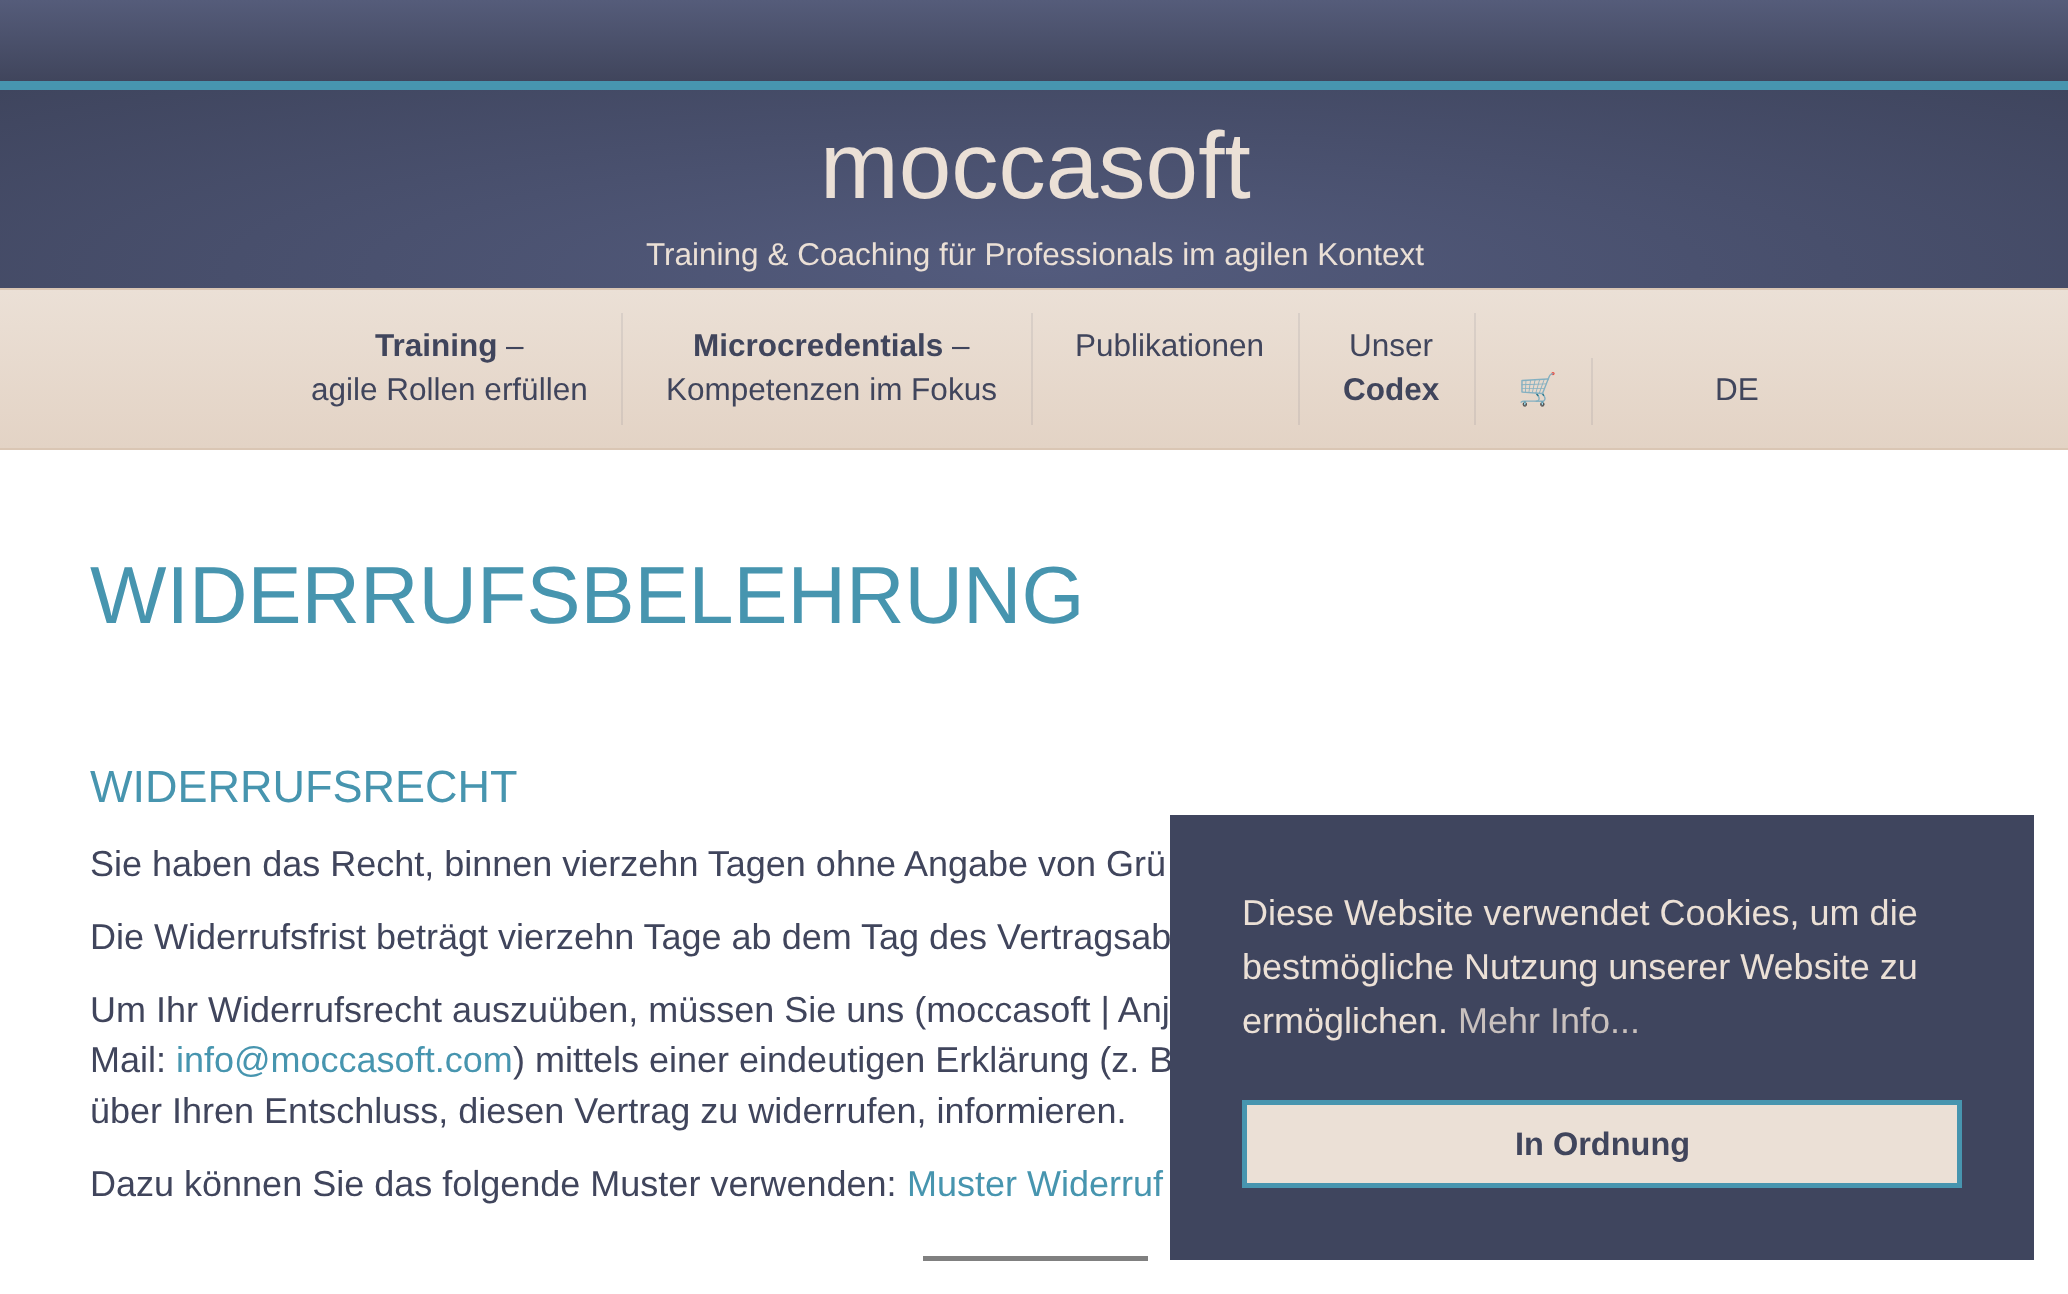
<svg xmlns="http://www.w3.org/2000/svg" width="2068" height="1294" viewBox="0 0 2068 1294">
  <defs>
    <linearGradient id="g1" gradientUnits="userSpaceOnUse" x1="1035" y1="0" x2="1035" y2="81"><stop offset="0" stop-color="rgb(85,92,122)"/><stop offset="1" stop-color="rgb(64,69,92)"/></linearGradient>
    <radialGradient id="g2" gradientUnits="userSpaceOnUse" cx="0" cy="0" r="1" gradientTransform="matrix(1464 0 0 255 1035 270)"><stop offset="0" stop-color="rgb(83,91,125)"/><stop offset="1" stop-color="rgb(63,69,94)"/></radialGradient>
    <linearGradient id="g3" gradientUnits="userSpaceOnUse" x1="1035" y1="290" x2="1035" y2="448"><stop offset="0" stop-color="rgb(235,224,214)"/><stop offset="1" stop-color="rgb(227,211,197)"/></linearGradient>
    <linearGradient id="g4" gradientUnits="userSpaceOnUse" x1="1035" y1="290" x2="1035" y2="448"><stop offset="0" stop-color="rgb(218,209,202)"/><stop offset="1" stop-color="rgb(211,197,187)"/></linearGradient>
  </defs>
  <rect width="100%" height="100%" fill="rgb(255,255,255)"/>
  <rect x="0" y="0" width="2068" height="81" fill="url(#g1)"/>
  <rect x="0" y="81" width="2068" height="9" fill="rgb(71,149,175)"/>
  <rect x="0" y="90" width="2068" height="198" fill="url(#g2)"/>
  <text x="820" y="198" font-family="Liberation Sans" font-size="94.5" fill="rgb(235,224,214)">moccasoft</text>
  <text x="646" y="265" font-family="Liberation Sans" font-size="31.5" fill="rgb(235,224,214)">Training &amp; Coaching für Professionals im agilen Kontext</text>
  <rect x="0" y="290" width="2068" height="158" fill="url(#g3)"/>
  <rect x="1591" y="358" width="2" height="67" fill="url(#g4)"/>
  <rect x="1474" y="313" width="2" height="112" fill="url(#g4)"/>
  <rect x="1298" y="313" width="2" height="112" fill="url(#g4)"/>
  <rect x="1031" y="313" width="2" height="112" fill="url(#g4)"/>
  <rect x="621" y="313" width="2" height="112" fill="url(#g4)"/>
  <rect x="0" y="288" width="2068" height="2" fill="rgb(218,198,180)"/>
  <rect x="0" y="448" width="2068" height="2" fill="rgb(218,198,180)"/>
  <text x="375" y="356" font-family="Liberation Sans" font-size="31.5" font-weight="bold" fill="rgb(64,69,92)">Training</text>
  <g font-family="Liberation Sans" font-size="31.5" fill="rgb(64,69,92)">
    <text x="506" y="356">–</text>
    <text x="311" y="400">agile Rollen erfüllen</text>
  </g>
  <text x="693" y="356" font-family="Liberation Sans" font-size="31.5" font-weight="bold" fill="rgb(64,69,92)">Microcredentials</text>
  <g font-family="Liberation Sans" font-size="31.5" fill="rgb(64,69,92)">
    <text x="952" y="356">–</text>
    <text x="666" y="400">Kompetenzen im Fokus</text>
    <text x="1075" y="356">Publikationen</text>
    <text x="1349" y="356">Unser</text>
  </g>
  <text x="1343" y="400" font-family="Liberation Sans" font-size="31.5" font-weight="bold" fill="rgb(64,69,92)">Codex</text>
  <text x="1518" y="400" font-family="Noto Color Emoji" font-size="31.5" fill="rgb(64,69,92)">🛒</text>
  <text x="1715" y="400" font-family="Liberation Sans" font-size="31.5" fill="rgb(64,69,92)">DE</text>
  <text x="90" y="623" font-family="Liberation Sans" font-size="81" fill="rgb(71,149,175)">WIDERRUFSBELEHRUNG</text>
  <text x="90" y="802" font-family="Liberation Sans" font-size="45" fill="rgb(71,149,175)">WIDERRUFSRECHT</text>
  <g font-family="Liberation Sans" font-size="36" fill="rgb(64,69,92)">
    <text x="90" y="876">Sie haben das Recht, binnen vierzehn Tagen ohne Angabe von Grü</text>
    <text x="90" y="949">Die Widerrufsfrist beträgt vierzehn Tage ab dem Tag des Vertragsab</text>
    <text>
      <tspan x="90" y="1022">Um Ihr Widerrufsrecht auszuüben, müssen Sie uns (moccasoft | Anj</tspan>
      <tspan x="90" y="1072">Mail:</tspan>
    </text>
  </g>
  <text x="176" y="1072" font-family="Liberation Sans" font-size="36" fill="rgb(71,149,175)">info@moccasoft.com</text>
  <g font-family="Liberation Sans" font-size="36" fill="rgb(64,69,92)">
    <text x="513" y="1072">) mittels einer eindeutigen Erklärung (z. B</text>
    <text x="90" y="1123">über Ihren Entschluss, diesen Vertrag zu widerrufen, informieren.</text>
    <text x="90" y="1196">Dazu können Sie das folgende Muster verwenden:</text>
  </g>
  <text x="907" y="1196" font-family="Liberation Sans" font-size="36" fill="rgb(71,149,175)">Muster Widerruf</text>
  <rect x="923" y="1256" width="225" height="5" fill="rgb(128,128,128)"/>
  <rect x="1170" y="815" width="864" height="445" fill="rgb(63,69,94)"/>
  <g font-family="Liberation Sans" font-size="36" fill="rgb(235,224,214)">
    <text>
      <tspan x="1242" y="925">Diese Website verwendet Cookies, um die</tspan>
      <tspan x="1242" y="979">bestmögliche Nutzung unserer Website zu</tspan>
      <tspan x="1242" y="1033">ermöglichen.</tspan>
    </text>
  </g>
  <text x="1458" y="1033" font-family="Liberation Sans" font-size="36" fill="rgb(201,193,190)">Mehr Info...</text>
  <rect x="1244.5" y="1102.5" width="715" height="83" fill="rgb(235,224,214)" stroke="rgb(71,149,175)" stroke-width="5"/>
  <text x="1515" y="1155" font-family="Liberation Sans" font-size="32.5" font-weight="bold" fill="rgb(64,69,92)">In Ordnung</text>
</svg>
